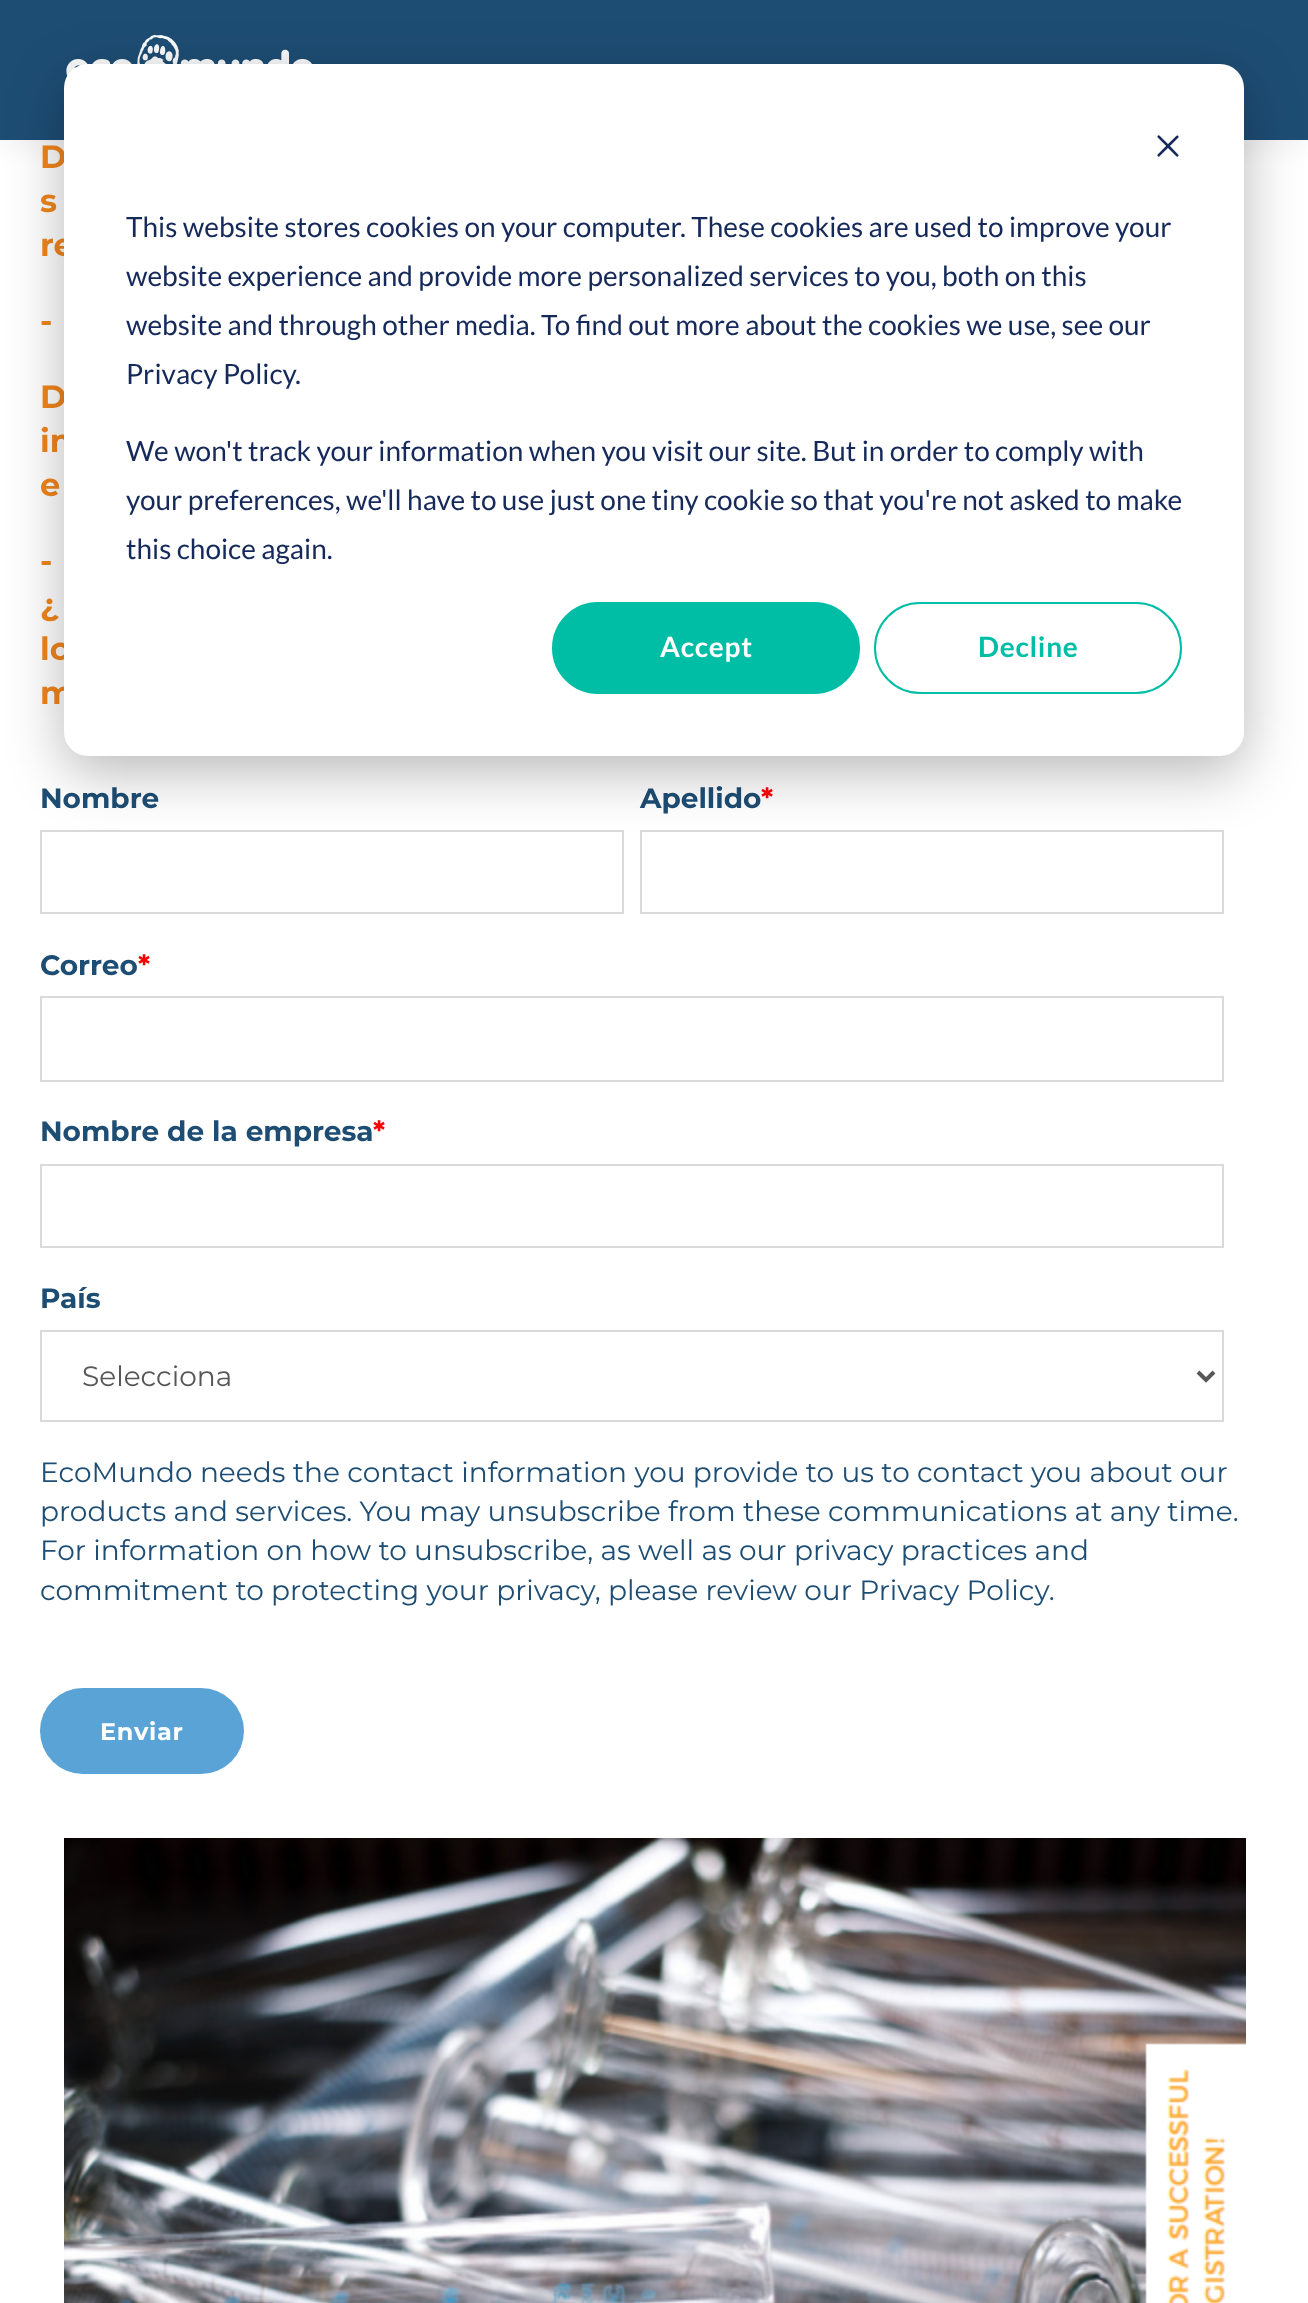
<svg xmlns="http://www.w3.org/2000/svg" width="1308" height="2303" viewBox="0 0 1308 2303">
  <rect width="100%" height="100%" fill="rgb(255,255,255)"/>
  <rect x="0" y="10" width="1308" height="140" fill="rgba(154,161,177,0.1)" filter="blur(10px)"/>
  <rect x="0" y="0" width="1308" height="140" fill="rgb(30,77,116)"/>
  <image x="66" y="34" width="246" height="43" href="pic1.png"/>
  <g font-family="Montserrat" font-size="32" font-weight="bold" fill="rgb(242,134,28)">
    <text>
      <tspan x="40" y="168">D</tspan>
      <tspan x="40" y="212">s</tspan>
      <tspan x="40" y="256">re</tspan>
    </text>
    <text x="40" y="332">-</text>
    <text>
      <tspan x="40" y="408">D</tspan>
      <tspan x="40" y="452">in</tspan>
      <tspan x="40" y="496">e</tspan>
    </text>
    <text>
      <tspan x="40" y="572">-</tspan>
      <tspan x="40" y="616">¿</tspan>
      <tspan x="40" y="660">lo</tspan>
      <tspan x="40" y="704">m</tspan>
    </text>
  </g>
  <text x="40" y="808" font-family="Montserrat" font-size="28" font-weight="bold" fill="rgb(30,77,116)">Nombre</text>
  <rect x="41" y="831" width="582" height="82" fill="none" stroke="rgb(218,218,218)" stroke-width="2"/>
  <text x="640" y="808" font-family="Montserrat" font-size="28" font-weight="bold" fill="rgb(30,77,116)">Apellido</text>
  <text x="761" y="808" font-family="Montserrat" font-size="28" font-weight="bold" fill="rgb(255,0,0)">*</text>
  <rect x="641" y="831" width="582" height="82" fill="none" stroke="rgb(218,218,218)" stroke-width="2"/>
  <text x="40" y="975" font-family="Montserrat" font-size="28" font-weight="bold" fill="rgb(30,77,116)">Correo</text>
  <text x="138" y="975" font-family="Montserrat" font-size="28" font-weight="bold" fill="rgb(255,0,0)">*</text>
  <rect x="41" y="997" width="1182" height="84" fill="none" stroke="rgb(218,218,218)" stroke-width="2"/>
  <text x="40" y="1141" font-family="Montserrat" font-size="28" font-weight="bold" fill="rgb(30,77,116)">Nombre de la empresa</text>
  <text x="373" y="1141" font-family="Montserrat" font-size="28" font-weight="bold" fill="rgb(255,0,0)">*</text>
  <rect x="41" y="1165" width="1182" height="82" fill="none" stroke="rgb(218,218,218)" stroke-width="2"/>
  <text x="40" y="1308" font-family="Montserrat" font-size="28" font-weight="bold" fill="rgb(30,77,116)">País</text>
  <rect x="41" y="1331" width="1182" height="90" fill="none" stroke="rgb(218,218,218)" stroke-width="2"/>
  <path d="M1198 1372L1206 1380L1214 1372" fill="none" stroke="rgb(87,87,87)" stroke-width="4"/>
  <text x="82" y="1386" font-family="Montserrat" font-size="28" fill="rgb(87,87,87)">Selecciona</text>
  <g font-family="Montserrat" font-size="28" fill="rgb(30,77,116)">
    <text>
      <tspan x="40" y="1482">EcoMundo needs the contact information you provide to us to contact you about our</tspan>
      <tspan x="40" y="1521">products and services. You may unsubscribe from these communications at any time.</tspan>
      <tspan x="40" y="1560">For information on how to unsubscribe, as well as our privacy practices and</tspan>
      <tspan x="40" y="1600">commitment to protecting your privacy, please review our Privacy Policy.</tspan>
    </text>
  </g>
  <rect x="40" y="1688" width="204" height="86" rx="43" fill="rgb(89,163,215)"/>
  <text x="100" y="1740" font-family="Montserrat" font-size="24" font-weight="bold" letter-spacing="0.75" fill="rgb(255,255,255)">Enviar</text>
  <image x="64" y="1838" width="1182" height="465" href="pic2.png"/>
  <rect x="64" y="80" width="1180" height="692" rx="24" fill="rgba(0,0,0,0.28)" filter="blur(28px)"/>
  <rect x="64" y="64" width="1180" height="692" rx="24" fill="rgb(255,255,255)"/>
  <image x="1157" y="135" width="22" height="22" href="pic3.png"/>
  <g font-family="Lato" font-size="28" fill="rgb(21,41,90)">
    <text>
      <tspan x="126" y="237">This website stores cookies on your computer. These cookies are used to improve your</tspan>
      <tspan x="126" y="286">website experience and provide more personalized services to you, both on this</tspan>
      <tspan x="126" y="335">website and through other media. To find out more about the cookies we use, see our</tspan>
      <tspan x="126" y="384">Privacy Policy.</tspan>
    </text>
    <text>
      <tspan x="126" y="461">We won't track your information when you visit our site. But in order to comply with</tspan>
      <tspan x="126" y="510">your preferences, we'll have to use just one tiny cookie so that you're not asked to make</tspan>
      <tspan x="126" y="559">this choice again.</tspan>
    </text>
  </g>
  <rect x="553" y="603" width="306" height="90" rx="45" fill="rgb(0,189,165)" stroke="rgb(0,189,165)" stroke-width="2"/>
  <text x="660" y="657" font-family="Lato" font-size="28" font-weight="bold" letter-spacing="0.75" fill="rgb(255,255,255)">Accept</text>
  <rect x="875" y="603" width="306" height="90" rx="45" fill="none" stroke="rgb(0,189,165)" stroke-width="2"/>
  <text x="978" y="657" font-family="Lato" font-size="28" font-weight="bold" letter-spacing="0.75" fill="rgb(0,189,165)">Decline</text>
</svg>
